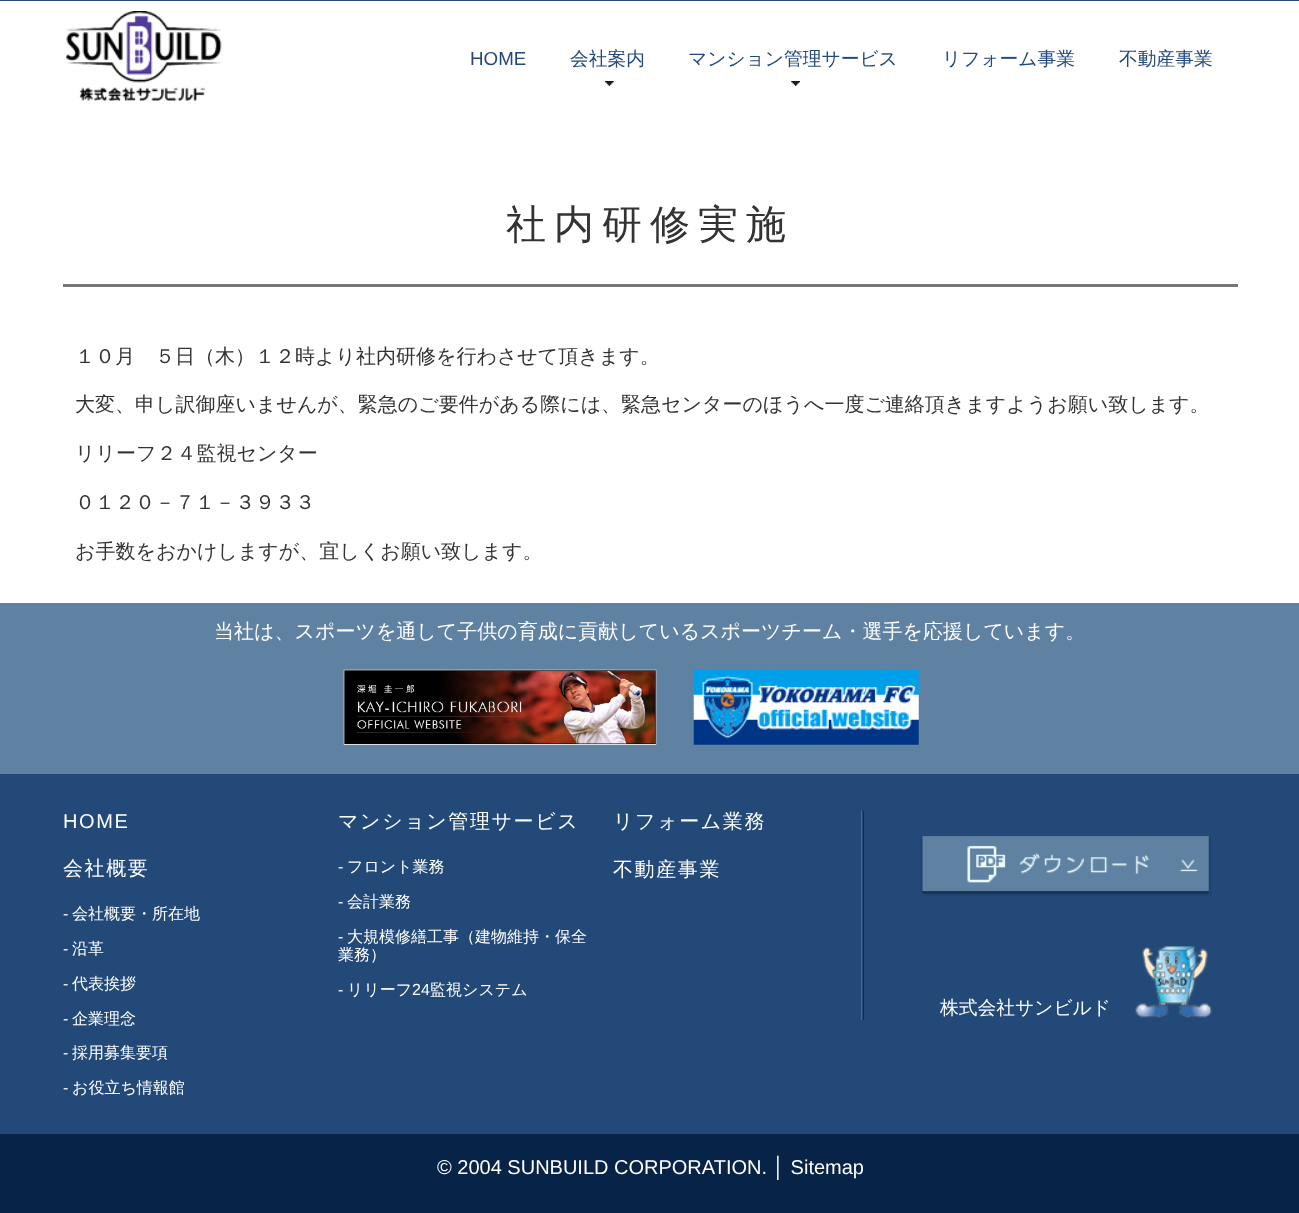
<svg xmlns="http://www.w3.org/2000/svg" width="1299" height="1213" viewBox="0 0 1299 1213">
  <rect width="100%" height="100%" fill="rgb(255,255,255)"/>
  <rect x="0" y="0" width="1299" height="1" fill="rgb(35,73,121)"/>
  <image x="65" y="11" width="157" height="90" href="pic1.png"/>
  <text x="470" y="65" font-family="Liberation Sans" font-size="18.75" fill="rgb(35,73,121)">HOME</text>
  <text x="570" y="65" font-family="WenQuanYi Zen Hei" font-size="18.75" font-weight="500" fill="rgb(35,73,121)">会社案内</text>
  <image x="605" y="81" width="9" height="5" href="pic2.png"/>
  <text x="688" y="65" font-family="WenQuanYi Zen Hei" font-size="18.75" font-weight="500" fill="rgb(35,73,121)">マンション管理サービス</text>
  <image x="791" y="81" width="9" height="5" href="pic3.png"/>
  <g font-family="WenQuanYi Zen Hei" font-size="18.75" font-weight="500" fill="rgb(35,73,121)">
    <text x="942" y="65">リフォーム事業</text>
    <text x="1119" y="65">不動産事業</text>
  </g>
  <rect x="63" y="284" width="1175" height="3" fill="rgb(119,119,119)"/>
  <text x="506" y="238" font-family="WenQuanYi Zen Hei" font-size="40" font-weight="500" letter-spacing="8" fill="rgb(51,51,51)">社内研修実施</text>
  <g font-family="WenQuanYi Zen Hei" font-size="20" font-weight="500" fill="rgb(51,51,51)">
    <text x="75" y="363">１０月　５日（木）１２時より社内研修を行わさせて頂きます。</text>
    <text x="75" y="411">大変、申し訳御座いませんが、緊急のご要件がある際には、緊急センターのほうへ一度ご連絡頂きますようお願い致します。</text>
    <text x="75" y="460">リリーフ２４監視センター</text>
    <text x="75" y="509">０１２０－７１－３９３３</text>
    <text x="75" y="558">お手数をおかけしますが、宜しくお願い致します。</text>
  </g>
  <rect x="0" y="774" width="1299" height="360" fill="rgb(35,73,121)"/>
  <rect x="0" y="603" width="1299" height="171" fill="rgb(95,129,162)"/>
  <text x="214" y="638" font-family="WenQuanYi Zen Hei" font-size="20" font-weight="500" fill="rgb(255,255,255)">当社は、スポーツを通して子供の育成に貢献しているスポーツチーム・選手を応援しています。</text>
  <image x="343" y="669" width="314" height="76" href="pic4.png"/>
  <image x="693" y="669" width="226" height="76" href="pic5.png"/>
  <text x="63" y="828" font-family="Liberation Sans" font-size="20" letter-spacing="1.6" fill="rgb(255,255,255)">HOME</text>
  <text x="63" y="875" font-family="WenQuanYi Zen Hei" font-size="20" font-weight="500" letter-spacing="1.6" fill="rgb(255,255,255)">会社概要</text>
  <text x="63" y="919" font-family="Liberation Sans" font-size="16" fill="rgb(255,255,255)">-</text>
  <text x="72" y="919" font-family="WenQuanYi Zen Hei" font-size="16" font-weight="500" fill="rgb(255,255,255)">会社概要・所在地</text>
  <text x="63" y="954" font-family="Liberation Sans" font-size="16" fill="rgb(255,255,255)">-</text>
  <text x="72" y="954" font-family="WenQuanYi Zen Hei" font-size="16" font-weight="500" fill="rgb(255,255,255)">沿革</text>
  <text x="63" y="989" font-family="Liberation Sans" font-size="16" fill="rgb(255,255,255)">-</text>
  <text x="72" y="989" font-family="WenQuanYi Zen Hei" font-size="16" font-weight="500" fill="rgb(255,255,255)">代表挨拶</text>
  <text x="63" y="1024" font-family="Liberation Sans" font-size="16" fill="rgb(255,255,255)">-</text>
  <text x="72" y="1024" font-family="WenQuanYi Zen Hei" font-size="16" font-weight="500" fill="rgb(255,255,255)">企業理念</text>
  <text x="63" y="1058" font-family="Liberation Sans" font-size="16" fill="rgb(255,255,255)">-</text>
  <text x="72" y="1058" font-family="WenQuanYi Zen Hei" font-size="16" font-weight="500" fill="rgb(255,255,255)">採用募集要項</text>
  <text x="63" y="1093" font-family="Liberation Sans" font-size="16" fill="rgb(255,255,255)">-</text>
  <text x="72" y="1093" font-family="WenQuanYi Zen Hei" font-size="16" font-weight="500" fill="rgb(255,255,255)">お役立ち情報館</text>
  <text x="338" y="828" font-family="WenQuanYi Zen Hei" font-size="20" font-weight="500" letter-spacing="1.6" fill="rgb(255,255,255)">マンション管理サービス</text>
  <text x="338" y="872" font-family="Liberation Sans" font-size="16" fill="rgb(255,255,255)">-</text>
  <text x="347" y="872" font-family="WenQuanYi Zen Hei" font-size="16" font-weight="500" fill="rgb(255,255,255)">フロント業務</text>
  <text x="338" y="907" font-family="Liberation Sans" font-size="16" fill="rgb(255,255,255)">-</text>
  <text x="347" y="907" font-family="WenQuanYi Zen Hei" font-size="16" font-weight="500" fill="rgb(255,255,255)">会計業務</text>
  <text x="338" y="942" font-family="Liberation Sans" font-size="16" fill="rgb(255,255,255)">-</text>
  <g font-family="WenQuanYi Zen Hei" font-size="16" font-weight="500" fill="rgb(255,255,255)">
    <text x="347" y="942">大規模修繕工事（建物維持・保全</text>
    <text x="338" y="960">業務）</text>
  </g>
  <text x="338" y="995" font-family="Liberation Sans" font-size="16" fill="rgb(255,255,255)">-</text>
  <text x="347" y="995" font-family="WenQuanYi Zen Hei" font-size="16" font-weight="500" fill="rgb(255,255,255)">リリーフ</text>
  <text x="412" y="995" font-family="Liberation Sans" font-size="16" fill="rgb(255,255,255)">24</text>
  <text x="430" y="995" font-family="WenQuanYi Zen Hei" font-size="16" font-weight="500" fill="rgb(255,255,255)">監視システム</text>
  <rect x="861" y="811" width="1" height="209" fill="rgb(75,106,145)"/>
  <g font-family="WenQuanYi Zen Hei" font-size="20" font-weight="500" letter-spacing="1.6" fill="rgb(255,255,255)">
    <text x="613" y="828">リフォーム業務</text>
    <text x="613" y="876">不動産事業</text>
  </g>
  <rect x="863" y="811" width="1" height="209" fill="rgb(15,46,86)"/>
  <image x="920" y="836" width="292" height="60" href="pic6.png"/>
  <text x="940" y="1014" font-family="WenQuanYi Zen Hei" font-size="18.75" font-weight="500" fill="rgb(255,255,255)">株式会社サンビルド</text>
  <image x="1135" y="946" width="77" height="72" href="pic7.png"/>
  <rect x="0" y="1134" width="1299" height="79" fill="rgb(7,35,71)"/>
  <text x="437" y="1174" font-family="Liberation Sans" font-size="20" fill="rgb(255,255,255)">© 2004 SUNBUILD CORPORATION. │ Sitemap</text>
</svg>
